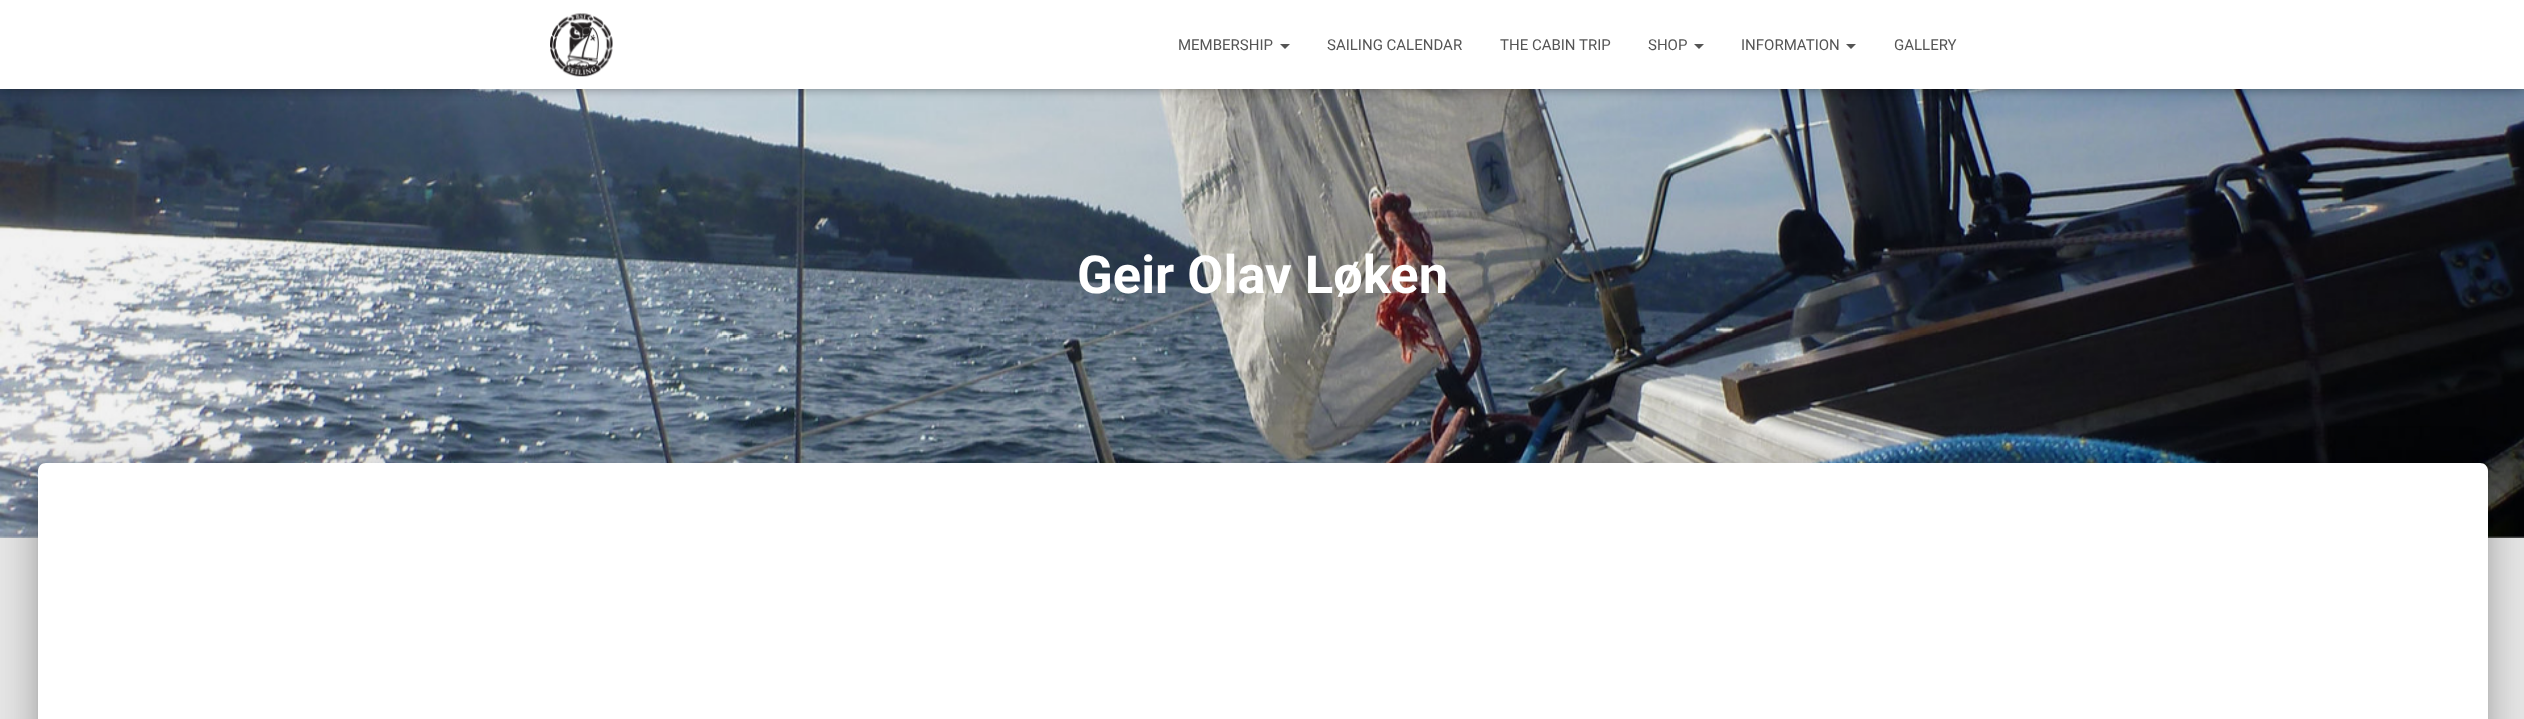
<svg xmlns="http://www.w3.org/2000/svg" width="2524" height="719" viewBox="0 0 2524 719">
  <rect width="100%" height="100%" fill="rgb(229,229,229)"/>
  <image x="0" y="89" width="2524" height="449" href="pic2.png"/>
  <rect x="3" y="8" width="2520" height="83" fill="rgba(0,0,0,0.1)" filter="blur(3px)"/>
  <rect x="0" y="1" width="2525" height="89" fill="rgba(0,0,0,0.12)" filter="blur(6px)"/>
  <rect x="8" y="9" width="2510" height="74" fill="rgba(0,0,0,0.42)" filter="blur(6px)"/>
  <rect x="0" y="0" width="2524" height="89" fill="rgb(255,255,255)"/>
  <image x="550" y="13" width="63" height="64" href="pic1.png"/>
  <text x="1178" y="50" font-family="Roboto" font-size="15" fill="rgb(85,85,85)">MEMBERSHIP</text>
  <path d="M1280 44H1290L1285 49Z" fill="rgb(85,85,85)"/>
  <g font-family="Roboto" font-size="15" fill="rgb(85,85,85)">
    <text x="1327" y="50">SAILING CALENDAR</text>
    <text x="1500" y="50">THE CABIN TRIP</text>
    <text x="1648" y="50">SHOP</text>
  </g>
  <path d="M1694 44H1704L1699 49Z" fill="rgb(85,85,85)"/>
  <text x="1741" y="50" font-family="Roboto" font-size="15" fill="rgb(85,85,85)">INFORMATION</text>
  <path d="M1846 44H1856L1851 49Z" fill="rgb(85,85,85)"/>
  <text x="1894" y="50" font-family="Roboto" font-size="15" fill="rgb(85,85,85)">GALLERY</text>
  <text x="1077" y="293" font-family="Roboto" font-size="52.5" font-weight="bold" fill="rgb(255,255,255)">Geir Olav Løken</text>
  <rect x="44" y="479" width="2437" height="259" rx="1" fill="rgba(0,0,0,0.2)" filter="blur(6px)"/>
  <rect x="31" y="464" width="2463" height="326" rx="14" fill="rgba(0,0,0,0.12)" filter="blur(19px)"/>
  <rect x="35" y="480" width="2455" height="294" rx="10" fill="rgba(0,0,0,0.14)" filter="blur(15px)"/>
  <path d="M46 463H2480C2484.5 463 2488 466.5 2488 471V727H38V471C38 466.5 41.5 463 46 463Z" fill="rgb(255,255,255)"/>
</svg>
